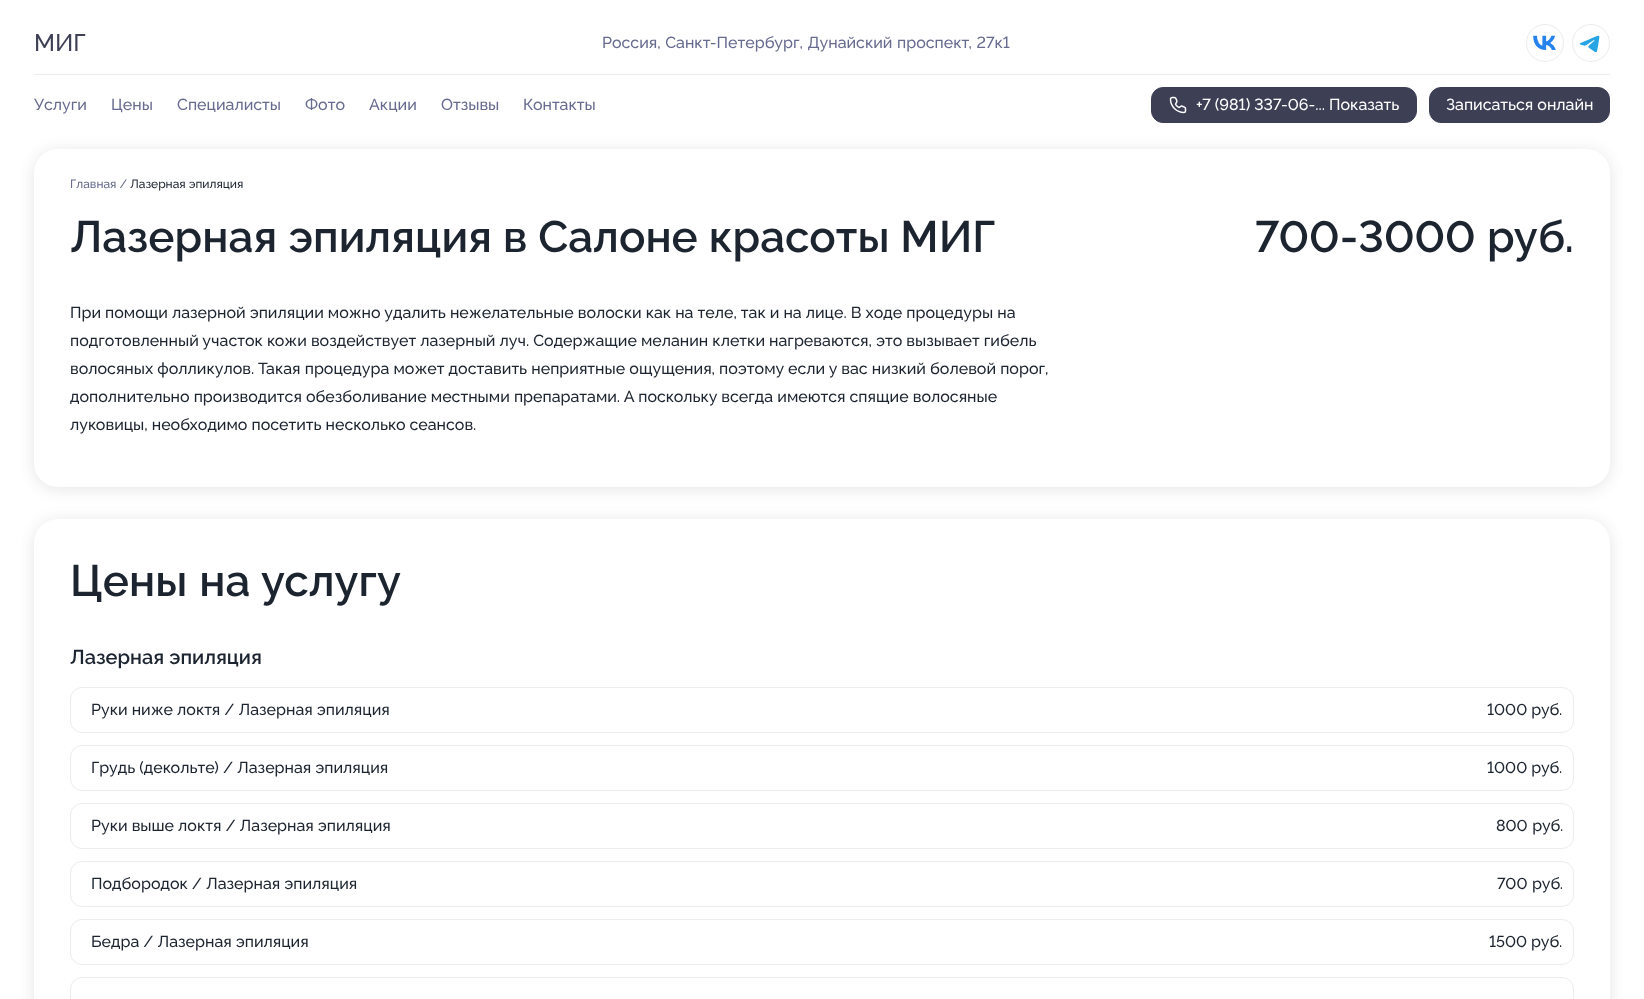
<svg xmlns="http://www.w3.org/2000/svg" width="1644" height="999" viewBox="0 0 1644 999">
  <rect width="100%" height="100%" fill="rgb(255,255,255)"/>
  <rect x="34" y="74" width="1576" height="1" fill="rgb(236,236,238)"/>
  <text x="34" y="51" font-family="Raleway" font-size="24" font-weight="500" fill="rgb(61,63,85)">МИГ</text>
  <text x="602" y="48" word-spacing="0.5" font-family="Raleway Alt" font-size="16" font-weight="500" fill="rgb(103,107,143)">Россия, Санкт-Петербург, Дунайский проспект, 27к1</text>
  <circle cx="1545" cy="43" r="18.5" fill="none" stroke="rgb(236,236,238)"/>
  <image x="1533" y="35" width="23" height="15" href="pic1.png"/>
  <circle cx="1591" cy="43" r="18.5" fill="none" stroke="rgb(236,236,238)"/>
  <image x="1579" y="35" width="21" height="17" href="pic2.png"/>
  <g font-family="Raleway" font-size="16" font-weight="500" fill="rgb(103,107,143)">
    <text x="34" y="110">Услуги</text>
    <text x="111" y="110">Цены</text>
    <text x="177" y="110">Специалисты</text>
    <text x="305" y="110">Фото</text>
    <text x="369" y="110">Акции</text>
    <text x="441" y="110">Отзывы</text>
    <text x="523" y="110">Контакты</text>
  </g>
  <rect x="1151.5" y="87.5" width="265" height="35" rx="11.5" fill="rgb(61,63,85)" stroke="rgb(61,63,85)"/>
  <image x="1169" y="96" width="18" height="18" href="pic3.png"/>
  <text x="1196" y="110" font-family="Raleway Alt" font-size="16" font-weight="500" fill="rgb(255,255,255)">+7 (981) 337-06-...</text>
  <text x="1329" y="110" font-family="Raleway" font-size="16" font-weight="500" fill="rgb(255,255,255)">Показать</text>
  <rect x="1429.5" y="87.5" width="180" height="35" rx="11.5" fill="rgb(61,63,85)" stroke="rgb(61,63,85)"/>
  <text x="1446" y="110" font-family="Raleway" font-size="16" font-weight="500" fill="rgb(255,255,255)">Записаться онлайн</text>
  <rect x="34" y="149" width="1576" height="338" rx="24" fill="rgba(0,0,0,0.05)" filter="blur(8px)"/>
  <rect x="34" y="153" width="1576" height="338" rx="24" fill="rgba(0,0,0,0.05)" filter="blur(8px)"/>
  <rect x="34" y="149" width="1576" height="338" rx="24" fill="rgb(255,255,255)"/>
  <text x="70" y="188" font-family="Raleway" font-size="12" font-weight="500" fill="rgb(103,107,143)">Главная /</text>
  <text x="130" y="188" font-family="Raleway" font-size="12" font-weight="500" fill="rgb(28,36,47)">Лазерная эпиляция</text>
  <text x="70" y="252" font-family="Raleway" font-size="44" font-weight="600" fill="rgb(28,36,47)">Лазерная эпиляция в Салоне красоты МИГ</text>
  <text x="1255" y="252" font-family="Raleway Alt" font-size="44" font-weight="600" fill="rgb(28,36,47)">700-3000</text>
  <text x="1487" y="252" font-family="Raleway" font-size="44" font-weight="600" fill="rgb(28,36,47)">руб.</text>
  <g font-family="Raleway" font-size="16" font-weight="500" fill="rgb(28,36,47)">
    <text>
      <tspan x="70" y="318">При помощи лазерной эпиляции можно удалить нежелательные волоски как на теле, так и на лице. В ходе процедуры на</tspan>
      <tspan x="70" y="346">подготовленный участок кожи воздействует лазерный луч. Содержащие меланин клетки нагреваются, это вызывает гибель</tspan>
      <tspan x="70" y="374" word-spacing="0.1">волосяных фолликулов. Такая процедура может доставить неприятные ощущения, поэтому если у вас низкий болевой порог,</tspan>
      <tspan x="70" y="402" word-spacing="0.1">дополнительно производится обезболивание местными препаратами. А поскольку всегда имеются спящие волосяные</tspan>
      <tspan x="70" y="430">луковицы, необходимо посетить несколько сеансов.</tspan>
    </text>
  </g>
  <rect x="34" y="519" width="1576" height="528" rx="24" fill="rgba(0,0,0,0.05)" filter="blur(8px)"/>
  <rect x="34" y="523" width="1576" height="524" rx="24" fill="rgba(0,0,0,0.05)" filter="blur(8px)"/>
  <rect x="34" y="519" width="1576" height="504" rx="24" fill="rgb(255,255,255)"/>
  <text x="70" y="596" word-spacing="1" font-family="Raleway" font-size="44" font-weight="600" fill="rgb(28,36,47)">Цены на услугу</text>
  <text x="70" y="664" font-family="Raleway" font-size="20" font-weight="600" fill="rgb(28,36,47)">Лазерная эпиляция</text>
  <rect x="70.5" y="687.5" width="1503" height="45" rx="11.5" fill="none" stroke="rgb(236,236,238)"/>
  <text x="91" y="715" font-family="Raleway" font-size="16" font-weight="500" fill="rgb(28,36,47)">Руки ниже локтя / Лазерная эпиляция</text>
  <text x="1487" y="715" font-family="Raleway Alt" font-size="16" font-weight="500" fill="rgb(28,36,47)">1000 руб.</text>
  <rect x="70.5" y="745.5" width="1503" height="45" rx="11.5" fill="none" stroke="rgb(236,236,238)"/>
  <text x="91" y="773" font-family="Raleway" font-size="16" font-weight="500" fill="rgb(28,36,47)">Грудь (декольте) / Лазерная эпиляция</text>
  <text x="1487" y="773" font-family="Raleway Alt" font-size="16" font-weight="500" fill="rgb(28,36,47)">1000 руб.</text>
  <rect x="70.5" y="803.5" width="1503" height="45" rx="11.5" fill="none" stroke="rgb(236,236,238)"/>
  <text x="91" y="831" font-family="Raleway" font-size="16" font-weight="500" fill="rgb(28,36,47)">Руки выше локтя / Лазерная эпиляция</text>
  <text x="1496" y="831" word-spacing="0.5" font-family="Raleway Alt" font-size="16" font-weight="500" fill="rgb(28,36,47)">800 руб.</text>
  <rect x="70.5" y="861.5" width="1503" height="45" rx="11.5" fill="none" stroke="rgb(236,236,238)"/>
  <text x="91" y="889" font-family="Raleway" font-size="16" font-weight="500" fill="rgb(28,36,47)">Подбородок / Лазерная эпиляция</text>
  <text x="1497" y="889" word-spacing="0.5" font-family="Raleway Alt" font-size="16" font-weight="500" fill="rgb(28,36,47)">700 руб.</text>
  <rect x="70.5" y="919.5" width="1503" height="45" rx="11.5" fill="none" stroke="rgb(236,236,238)"/>
  <text x="91" y="947" font-family="Raleway" font-size="16" font-weight="500" fill="rgb(28,36,47)">Бедра / Лазерная эпиляция</text>
  <text x="1489" y="947" font-family="Raleway Alt" font-size="16" font-weight="500" fill="rgb(28,36,47)">1500 руб.</text>
  <rect x="70.5" y="977.5" width="1503" height="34" rx="11.5" fill="none" stroke="rgb(236,236,238)"/>
</svg>
